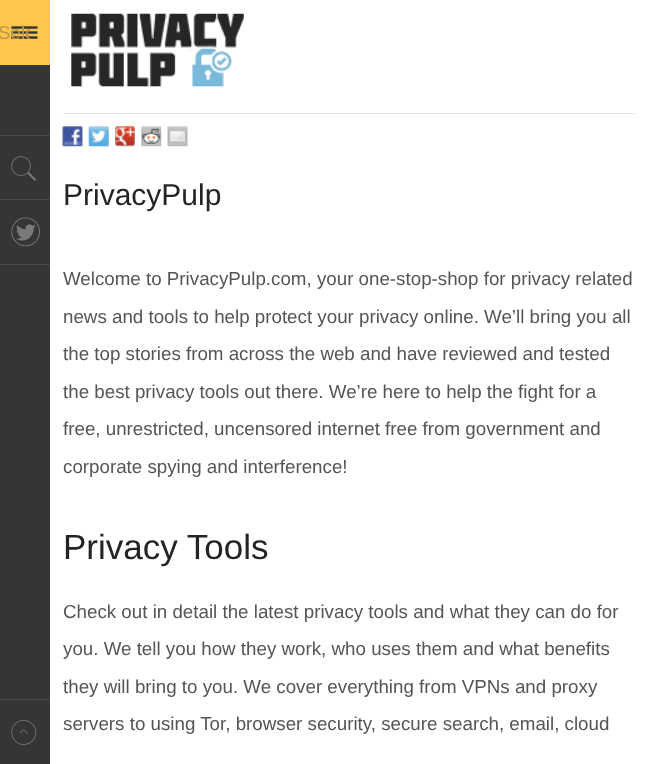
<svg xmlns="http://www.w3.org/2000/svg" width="647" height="764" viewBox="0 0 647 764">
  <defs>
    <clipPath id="clip1"><rect x="0" y="21" width="30" height="24"/></clipPath>
  </defs>
  <rect width="100%" height="100%" fill="rgb(53,53,53)"/>
  <rect x="50" y="0" width="597" height="764" fill="rgb(255,255,255)"/>
  <image x="0" y="0" width="50" height="65" href="pic1.png"/>
  <g clip-path="url(#clip1)">
    <text x="-2" y="39" font-family="Liberation Sans" font-size="18.75" fill="rgb(191,152,69)">Sele</text>
  </g>
  <rect x="0" y="135" width="50" height="1" fill="rgb(72,72,72)"/>
  <rect x="0" y="199" width="50" height="1" fill="rgb(72,72,72)"/>
  <image x="11" y="156" width="26" height="25" href="pic2.png"/>
  <rect x="0" y="264" width="50" height="1" fill="rgb(72,72,72)"/>
  <image x="11" y="217" width="29" height="30" href="pic3.png"/>
  <image x="71" y="13" width="173" height="74" href="pic4.png"/>
  <rect x="0" y="699" width="50" height="1" fill="rgb(72,72,72)"/>
  <image x="11" y="720" width="26" height="25" href="pic5.png"/>
  <rect x="63" y="113" width="572" height="1" fill="rgb(229,229,229)"/>
  <image x="62" y="126" width="21" height="21" href="pic6.png"/>
  <image x="88" y="126" width="21" height="21" href="pic7.png"/>
  <image x="115" y="126" width="20" height="21" href="pic8.png"/>
  <image x="141" y="126" width="21" height="21" href="pic9.png"/>
  <image x="167" y="126" width="21" height="21" href="pic10.png"/>
  <text x="63" y="205" font-family="Liberation Sans" font-size="30" fill="rgb(36,36,36)">PrivacyPulp</text>
  <g font-family="Liberation Sans" font-size="18.75" fill="rgb(85,85,85)">
    <text x="63" y="285">Welcome to PrivacyPulp.com, your one-stop-shop for privacy related</text>
    <text>
      <tspan x="63" y="323">news and tools to help protect your privacy online. We’ll bring you all</tspan>
      <tspan x="63" y="360">the top stories from across the web and have reviewed and tested</tspan>
    </text>
    <text>
      <tspan x="63" y="398">the best privacy tools out there. We’re here to help the fight for a</tspan>
      <tspan x="63" y="435">free, unrestricted, uncensored internet free from government and</tspan>
    </text>
    <text x="63" y="473">corporate spying and interference!</text>
  </g>
  <text x="63" y="559" font-family="Liberation Sans" font-size="35" fill="rgb(36,36,36)">Privacy Tools</text>
  <g font-family="Liberation Sans" font-size="18.75" fill="rgb(85,85,85)">
    <text>
      <tspan x="63" y="618">Check out in detail the latest privacy tools and what they can do for</tspan>
      <tspan x="63" y="655">you. We tell you how they work, who uses them and what benefits</tspan>
    </text>
    <text>
      <tspan x="63" y="693">they will bring to you. We cover everything from VPNs and proxy</tspan>
      <tspan x="63" y="730">servers to using Tor, browser security, secure search, email, cloud</tspan>
    </text>
  </g>
</svg>
